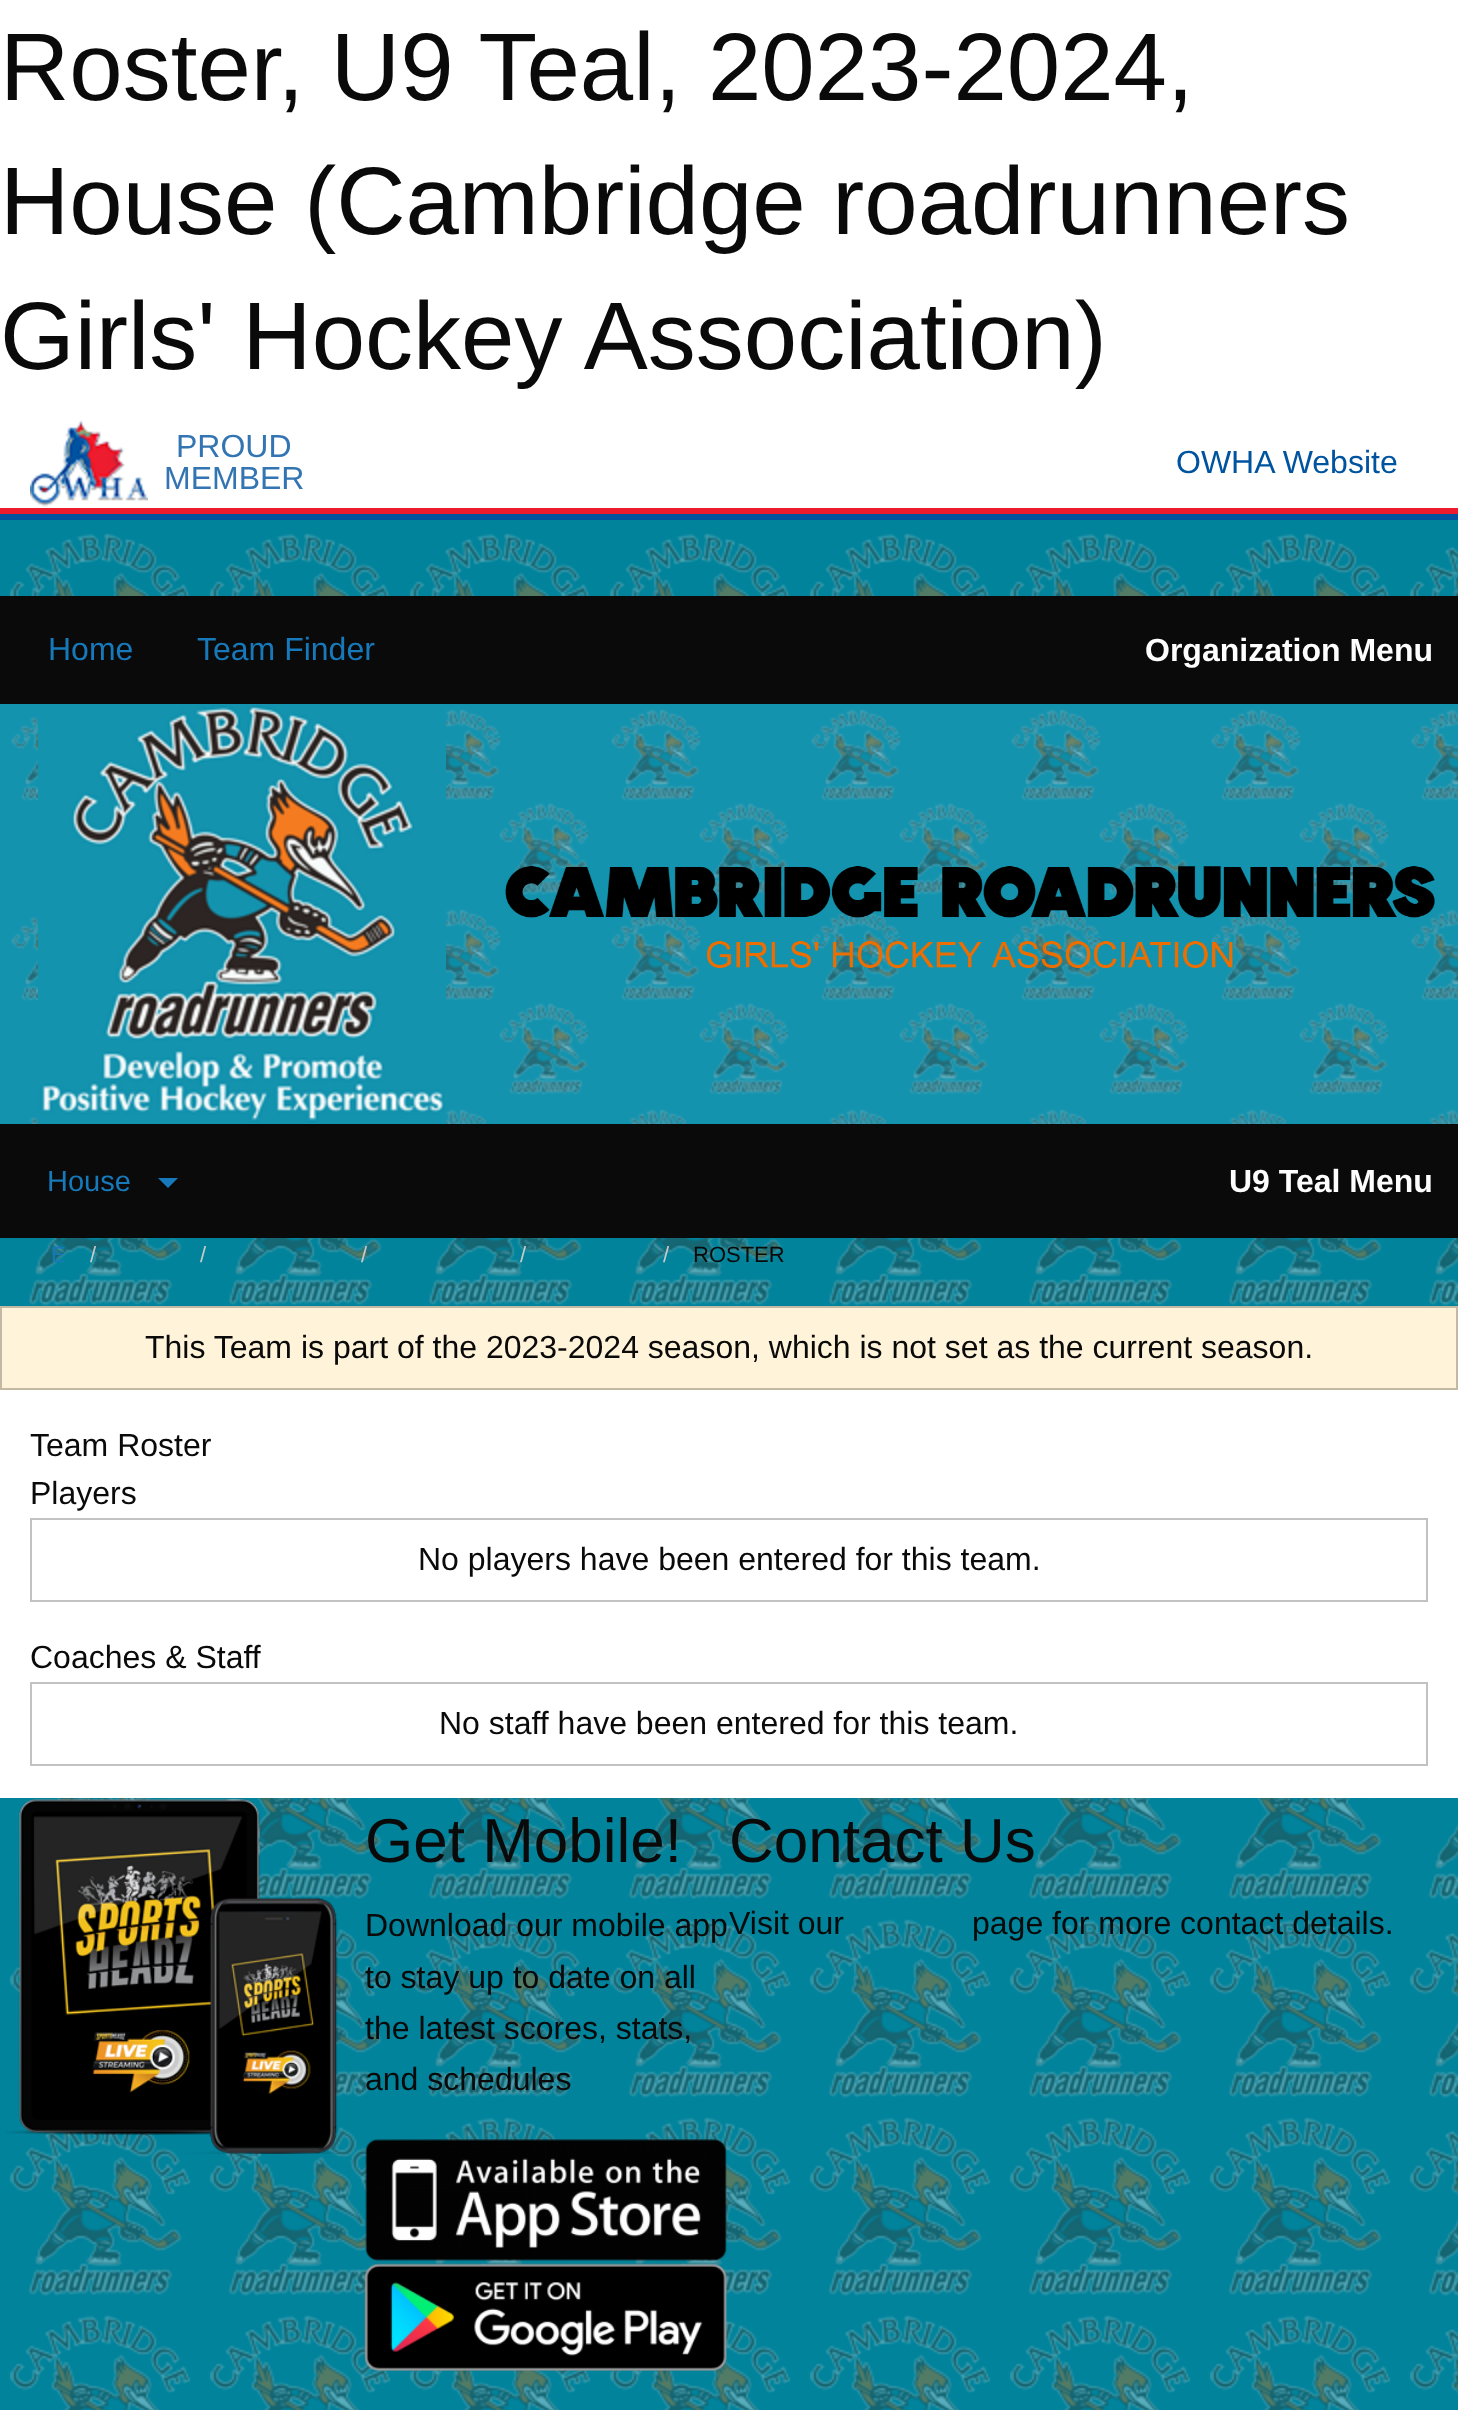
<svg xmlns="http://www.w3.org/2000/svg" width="1458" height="2410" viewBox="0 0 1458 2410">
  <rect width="100%" height="100%" fill="rgb(255,255,255)"/>
  <g font-family="Liberation Sans" font-size="96" fill="rgb(10,10,10)">
    <text>
      <tspan x="0" y="100">Roster, U9 Teal, 2023-2024,</tspan>
      <tspan x="0" y="234">House (Cambridge roadrunners</tspan>
      <tspan x="0" y="369">Girls' Hockey Association)</tspan>
    </text>
  </g>
  <image x="30" y="420" width="118" height="87" href="pic1.png"/>
  <g font-family="Liberation Sans" font-size="32" fill="rgb(51,117,178)">
    <text x="176" y="457">PROUD</text>
    <text x="164" y="489">MEMBER</text>
  </g>
  <text x="1176" y="473" font-family="Liberation Sans" font-size="32" fill="rgb(0,83,159)">OWHA Website</text>
  <rect x="0" y="508" width="1458" height="6" fill="rgb(237,27,45)"/>
  <rect x="0" y="514" width="1458" height="6" fill="rgb(0,83,159)"/>
  <rect x="0" y="520" width="1458" height="1890" fill="rgb(1,131,155)"/>
  <image x="9" y="533" width="1449" height="1877" href="pic2.png"/>
  <rect x="0" y="596" width="1458" height="108" fill="rgb(10,10,10)"/>
  <g font-family="Liberation Sans" font-size="32" fill="rgb(23,121,186)">
    <text x="48" y="660">Home</text>
    <text x="197" y="660">Team Finder</text>
  </g>
  <text x="1145" y="661" font-family="Liberation Sans" font-size="32" font-weight="bold" fill="rgb(254,254,254)">Organization Menu</text>
  <rect x="0" y="704" width="1458" height="420" fill="rgb(20,147,174)"/>
  <image x="11" y="709" width="1447" height="415" href="pic3.png"/>
  <image x="38" y="705" width="408" height="419" href="pic4.png"/>
  <image x="505" y="866" width="930" height="102" href="pic5.png"/>
  <rect x="0" y="1124" width="1458" height="114" fill="rgb(10,10,10)"/>
  <text x="47" y="1191" font-family="Liberation Sans" font-size="29" fill="rgb(23,121,186)">House</text>
  <path d="M158 1178H178L168 1188Z" fill="rgb(23,121,186)"/>
  <text x="1229" y="1192" font-family="Liberation Sans" font-size="32" font-weight="bold" fill="rgb(254,254,254)">U9 Teal Menu</text>
  <text x="51" y="1262" font-family="Liberation Sans" font-size="22" fill="rgb(23,121,186)">E</text>
  <g font-family="Liberation Sans" font-size="22" fill="rgb(202,202,202)">
    <text x="90" y="1262">/</text>
    <text x="200" y="1262">/</text>
    <text x="361" y="1262">/</text>
    <text x="520" y="1262">/</text>
    <text x="663" y="1262">/</text>
  </g>
  <text x="693" y="1262" font-family="Liberation Sans" font-size="22" fill="rgb(10,10,10)">ROSTER</text>
  <rect x="0" y="1390" width="1458" height="408" fill="rgb(255,255,255)"/>
  <rect x="1" y="1307" width="1456" height="82" fill="rgb(255,243,217)" stroke="rgb(194,185,165)" stroke-width="2"/>
  <g font-family="Liberation Sans" font-size="32" fill="rgb(10,10,10)">
    <text x="145" y="1358">This Team is part of the 2023-2024 season, which is not set as the current season.</text>
    <text>
      <tspan x="30" y="1456">Team Roster</tspan>
      <tspan x="30" y="1504">Players</tspan>
    </text>
  </g>
  <rect x="31" y="1519" width="1396" height="82" fill="none" stroke="rgb(194,194,194)" stroke-width="2"/>
  <g font-family="Liberation Sans" font-size="32" fill="rgb(10,10,10)">
    <text x="418" y="1570">No players have been entered for this team.</text>
    <text x="30" y="1668">Coaches &amp; Staff</text>
  </g>
  <rect x="31" y="1683" width="1396" height="82" fill="none" stroke="rgb(194,194,194)" stroke-width="2"/>
  <text x="439" y="1734" font-family="Liberation Sans" font-size="32" fill="rgb(10,10,10)">No staff have been entered for this team.</text>
  <image x="5" y="1798" width="335" height="356" href="pic6.png"/>
  <text x="365" y="1862" font-family="Liberation Sans" font-size="62" fill="rgb(10,10,10)">Get Mobile!</text>
  <g font-family="Liberation Sans" font-size="32" fill="rgb(10,10,10)">
    <text>
      <tspan x="365" y="1936">Download our mobile app</tspan>
      <tspan x="365" y="1988">to stay up to date on all</tspan>
      <tspan x="365" y="2039">the latest scores, stats,</tspan>
      <tspan x="365" y="2090">and schedules</tspan>
    </text>
  </g>
  <image x="365" y="2139" width="362" height="122" href="pic7.png"/>
  <image x="364" y="2263" width="363" height="108" href="pic8.png"/>
  <text x="729" y="1862" font-family="Liberation Sans" font-size="62" fill="rgb(10,10,10)">Contact Us</text>
  <g font-family="Liberation Sans" font-size="32" fill="rgb(10,10,10)">
    <text x="729" y="1934">Visit our</text>
    <text x="972" y="1934">page for more contact details.</text>
  </g>
</svg>
